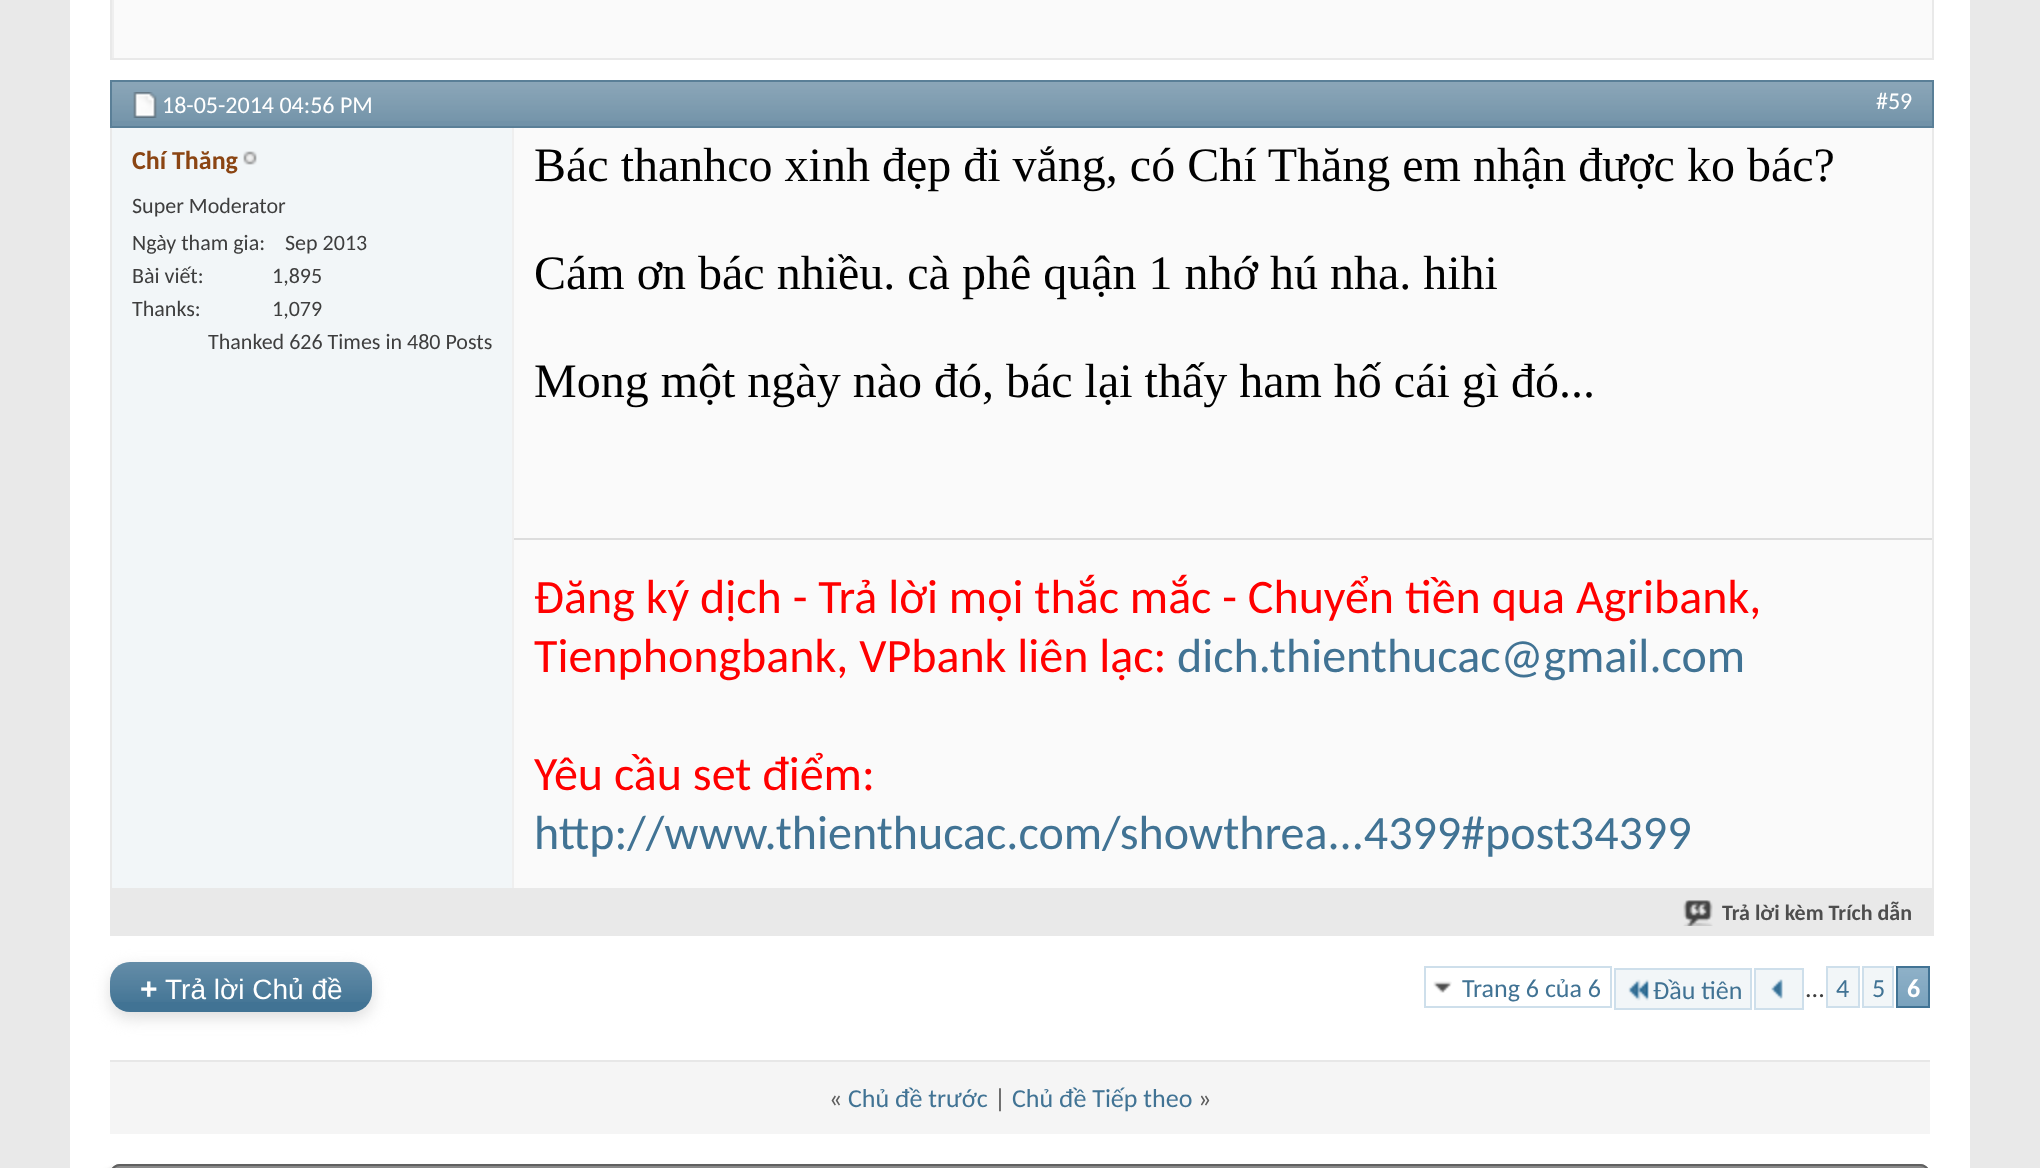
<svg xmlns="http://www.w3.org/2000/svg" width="2040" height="1168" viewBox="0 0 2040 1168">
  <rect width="100%" height="100%" fill="rgb(233,233,233)"/>
  <rect x="70" y="0" width="1900" height="1168" fill="rgb(255,255,255)"/>
  <rect x="111" y="-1" width="1822" height="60" fill="none" stroke="rgb(233,233,233)" stroke-width="2"/>
  <rect x="114" y="0" width="1818" height="58" fill="rgb(250,250,250)"/>
  <rect x="112" y="0" width="2" height="58" fill="rgb(239,239,239)"/>
  <rect x="111" y="81" width="1822" height="854" fill="none" stroke="rgb(233,233,233)" stroke-width="2"/>
  <rect x="112" y="82" width="1820" height="44" fill="rgb(113,146,168)"/>
  <image x="112" y="82" width="1820" height="39" href="pic1.png"/>
  <rect x="111" y="81" width="1822" height="46" fill="none" stroke="rgb(90,127,151)" stroke-width="2"/>
  <image x="133" y="92" width="24" height="26" href="pic2.png"/>
  <g font-family="Carlito" font-size="24" fill="rgb(255,255,255)">
    <text x="162" y="113">18-05-2014 04:56 PM</text>
    <text x="1876" y="109">#59</text>
  </g>
  <rect x="112" y="128" width="400" height="760" fill="rgb(242,246,248)"/>
  <text x="132" y="169" font-family="Carlito" font-size="26" font-weight="bold" fill="rgb(139,69,19)">Chí Thăng</text>
  <image x="243" y="151" width="14" height="14" href="pic3.png"/>
  <g font-family="Carlito" font-size="22" fill="rgb(62,62,62)">
    <text>
      <tspan x="132" y="213">Super Moderator</tspan>
      <tspan x="132" y="250">Ngày tham gia:</tspan>
    </text>
    <text x="285" y="250">Sep 2013</text>
    <text x="132" y="283">Bài viết:</text>
    <text x="272" y="283">1,895</text>
    <text x="132" y="316">Thanks:</text>
    <text x="272" y="316">1,079</text>
    <text x="208" y="349">Thanked 626 Times in 480 Posts</text>
  </g>
  <rect x="514" y="128" width="1418" height="760" fill="rgb(250,250,250)"/>
  <rect x="512" y="128" width="2" height="760" fill="rgb(239,239,239)"/>
  <g font-family="Liberation Serif" font-size="48" fill="rgb(0,0,0)">
    <text x="534" y="181">Bác thanhco xinh đẹp đi vắng, có Chí Thăng em nhận được ko bác?</text>
    <text x="534" y="289">Cám ơn bác nhiều. cà phê quận 1 nhớ hú nha. hihi</text>
    <text x="534" y="397">Mong một ngày nào đó, bác lại thấy ham hố cái gì đó...</text>
  </g>
  <rect x="514" y="538" width="1418" height="2" fill="rgb(221,221,221)"/>
  <g font-family="Carlito" font-size="48" fill="rgb(255,0,0)">
    <text>
      <tspan x="534" y="613">Đăng ký dịch - Trả lời mọi thắc mắc - Chuyển tiền qua Agribank,</tspan>
      <tspan x="534" y="672">Tienphongbank, VPbank liên lạc:</tspan>
    </text>
  </g>
  <text x="1177" y="672" font-family="Carlito" font-size="48" fill="rgb(65,115,148)">dich.thienthucac@gmail.com</text>
  <text x="534" y="790" font-family="Carlito" font-size="48" fill="rgb(255,0,0)">Yêu cầu set điểm:</text>
  <text x="534" y="849" font-family="Carlito" font-size="48" fill="rgb(65,115,148)">http://www.thienthucac.com/showthrea...4399#post34399</text>
  <rect x="112" y="888" width="1820" height="46" fill="rgb(233,233,233)"/>
  <image x="1683" y="900" width="30" height="26" href="pic4.png"/>
  <text x="1722" y="920" font-family="Carlito" font-size="22" font-weight="bold" fill="rgb(78,78,78)">Trả lời kèm Trích dẫn</text>
  <rect x="110" y="968" width="262" height="50" rx="20" fill="rgb(221,221,221)" filter="blur(8px)"/>
  <rect x="110" y="962" width="262" height="50" rx="20" fill="rgb(65,115,148)"/>
  <image x="110" y="962" width="262" height="40" href="pic5.png"/>
  <text x="140" y="999" font-family="Liberation Sans" font-size="30" font-weight="bold" fill="rgb(255,255,255)">+</text>
  <text x="165" y="999" font-family="Liberation Sans" font-size="28" fill="rgb(255,255,255)">Trả lời Chủ đề</text>
  <image x="1433" y="981" width="19" height="12" href="pic6.png"/>
  <rect x="1425" y="967" width="186" height="40" fill="none" stroke="rgb(206,223,235)" stroke-width="2"/>
  <text x="1462" y="997" font-family="Carlito" font-size="26" fill="rgb(65,115,148)">Trang 6 của 6</text>
  <rect x="1616" y="970" width="134" height="38" fill="rgb(242,246,248)"/>
  <image x="1628" y="979" width="21" height="22" href="pic7.png"/>
  <text x="1653" y="999" font-family="Carlito" font-size="26" fill="rgb(65,115,148)">Đầu tiên</text>
  <rect x="1614" y="968" width="138" height="2" fill="rgb(206,223,235)"/>
  <rect x="1614" y="1008" width="40" height="2" fill="rgb(206,223,235)"/>
  <rect x="1614" y="968" width="2" height="42" fill="rgb(206,223,235)"/>
  <rect x="1750" y="968" width="2" height="42" fill="rgb(206,223,235)"/>
  <rect x="1654" y="1008" width="98" height="2" fill="rgb(206,223,235)"/>
  <rect x="1755" y="969" width="48" height="40" fill="rgb(242,246,248)" stroke="rgb(206,223,235)" stroke-width="2"/>
  <image x="1771" y="979" width="12" height="20" href="pic8.png"/>
  <text x="1805" y="997" font-family="Carlito" font-size="26" fill="rgb(62,62,62)">...</text>
  <rect x="1827" y="967" width="32" height="40" fill="rgb(242,246,248)" stroke="rgb(206,223,235)" stroke-width="2"/>
  <text x="1836" y="997" font-family="Carlito" font-size="26" fill="rgb(65,115,148)">4</text>
  <rect x="1863" y="967" width="30" height="40" fill="rgb(242,246,248)" stroke="rgb(206,223,235)" stroke-width="2"/>
  <text x="1872" y="997" font-family="Carlito" font-size="26" fill="rgb(65,115,148)">5</text>
  <rect x="1898" y="968" width="30" height="38" fill="rgb(117,159,187)"/>
  <image x="1898" y="968" width="30" height="38" href="pic9.png"/>
  <rect x="1897" y="967" width="32" height="40" fill="none" stroke="rgb(65,115,148)" stroke-width="2"/>
  <text x="1907" y="997" font-family="Carlito" font-size="26" font-weight="bold" fill="rgb(255,255,255)">6</text>
  <rect x="110" y="1062" width="1820" height="72" fill="rgb(245,245,245)"/>
  <rect x="110" y="1060" width="1820" height="2" fill="rgb(231,231,231)"/>
  <text x="829" y="1107" font-family="Carlito" font-size="26" fill="rgb(93,93,93)">«</text>
  <text x="848" y="1107" font-family="Carlito" font-size="26" fill="rgb(65,115,148)">Chủ đề trước</text>
  <text x="994" y="1107" font-family="Carlito" font-size="26" fill="rgb(93,93,93)">|</text>
  <text x="1012" y="1107" font-family="Carlito" font-size="26" fill="rgb(65,115,148)">Chủ đề Tiếp theo</text>
  <text x="1198" y="1107" font-family="Carlito" font-size="26" fill="rgb(93,93,93)">»</text>
  <rect x="106" y="1168" width="1820" height="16" rx="10" fill="rgb(200,200,200)" filter="blur(2px)"/>
  <path d="M120 1164H1920C1925.5 1164 1930 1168.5 1930 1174V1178H110V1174C110 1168.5 114.5 1164 120 1164Z" fill="rgb(112,112,112)"/>
  <image x="112" y="1166" width="1816" height="2" href="pic10.png"/>
  <path d="M120 1165H1920C1925 1165 1929 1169 1929 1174V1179H111V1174C111 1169 115 1165 120 1165Z" fill="none" stroke="rgb(96,96,96)" stroke-width="2"/>
</svg>
